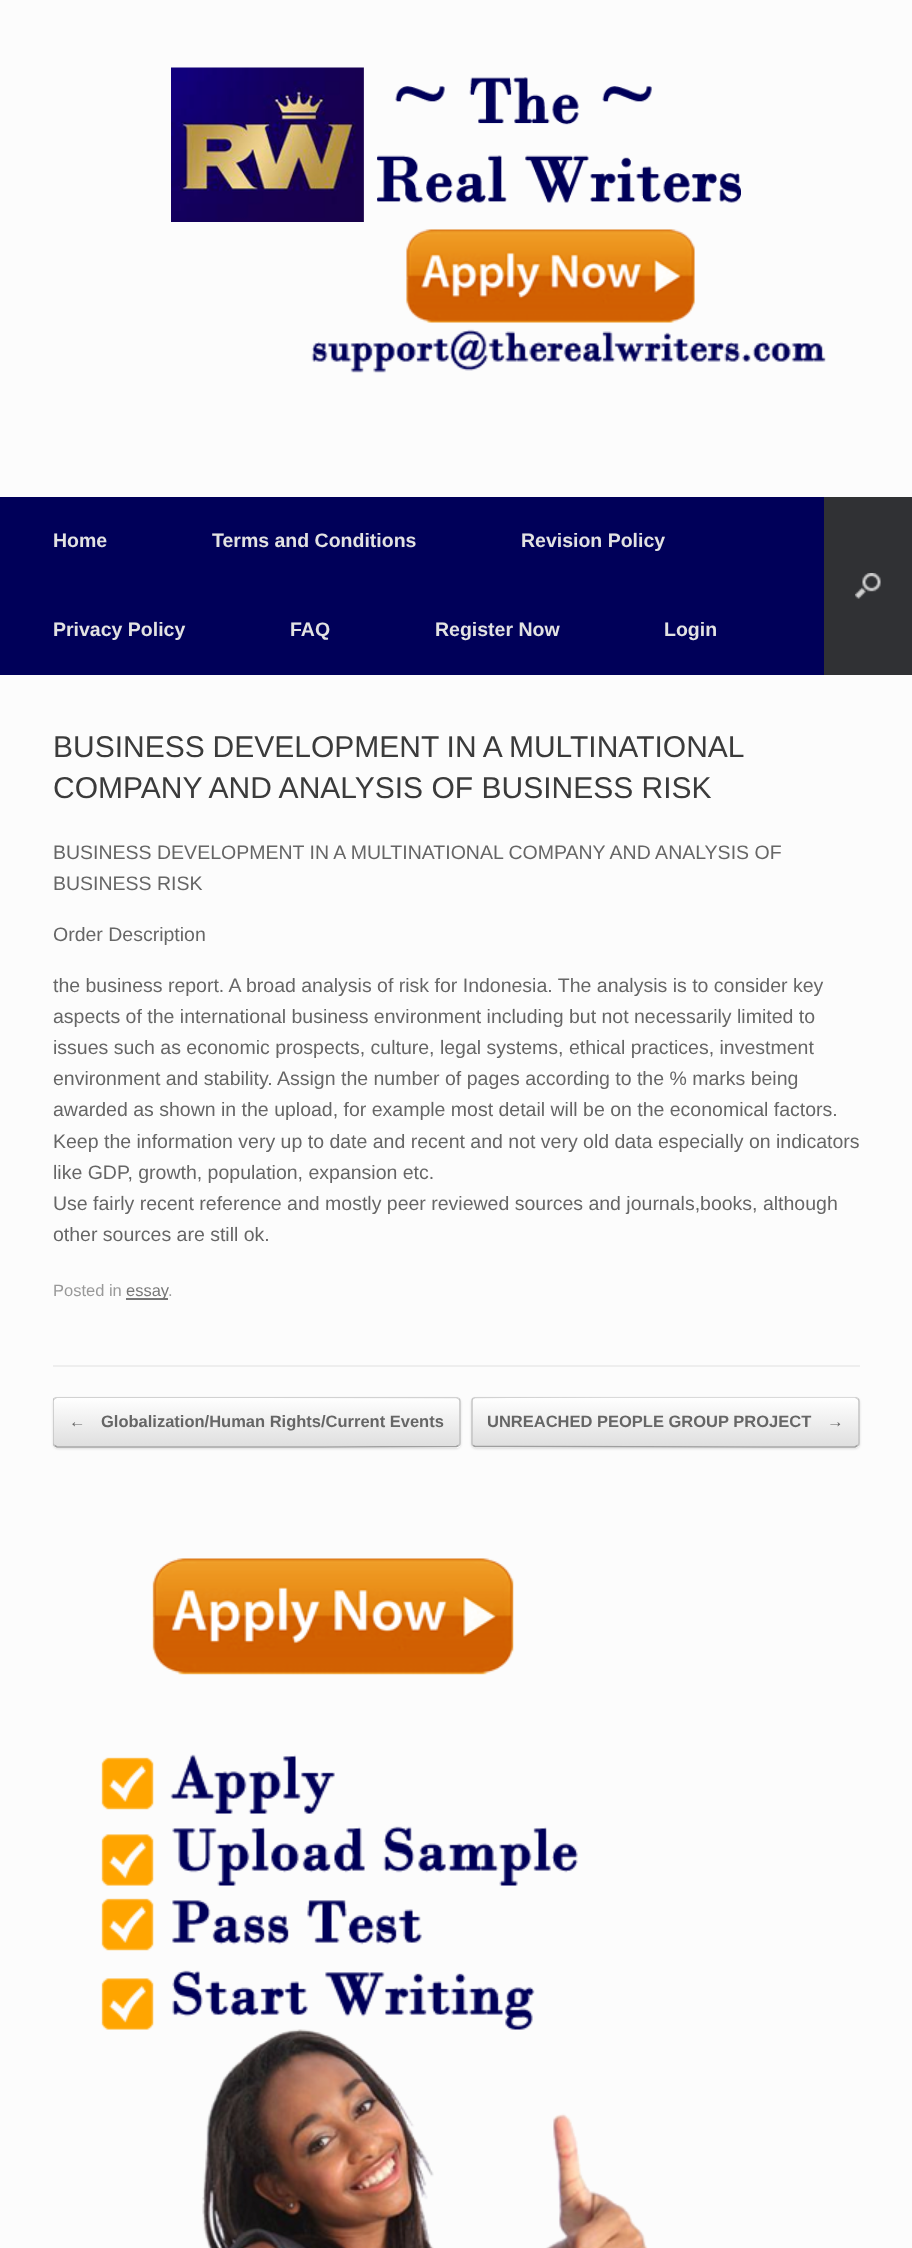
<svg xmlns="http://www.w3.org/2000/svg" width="912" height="2248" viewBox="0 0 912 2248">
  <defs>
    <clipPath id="clip1"><path d="M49 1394H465V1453H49ZM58 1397H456C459 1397 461 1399 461 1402V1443C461 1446 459 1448 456 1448H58C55 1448 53 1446 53 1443V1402C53 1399 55 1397 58 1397Z" clip-rule="evenodd"/></clipPath>
    <clipPath id="clip2"><rect x="53" y="1397" width="408" height="51" rx="5"/></clipPath>
    <linearGradient id="g1" gradientUnits="userSpaceOnUse" x1="54" y1="1446" x2="54" y2="1398"><stop offset="0" stop-color="rgb(223,223,223)"/><stop offset="1" stop-color="rgb(255,255,255)"/></linearGradient>
    <linearGradient id="g2" gradientUnits="userSpaceOnUse" x1="54" y1="1494" x2="54" y2="1446"><stop offset="0" stop-color="rgb(223,223,223)"/><stop offset="1" stop-color="rgb(255,255,255)"/></linearGradient>
    <clipPath id="clip3"><rect x="53" y="1397" width="807" height="51"/></clipPath>
    <clipPath id="clip4"><rect x="471" y="1397" width="389" height="51" rx="5"/></clipPath>
    <linearGradient id="g3" gradientUnits="userSpaceOnUse" x1="473" y1="1446" x2="473" y2="1398"><stop offset="0" stop-color="rgb(223,223,223)"/><stop offset="1" stop-color="rgb(255,255,255)"/></linearGradient>
    <linearGradient id="g4" gradientUnits="userSpaceOnUse" x1="473" y1="1494" x2="473" y2="1446"><stop offset="0" stop-color="rgb(223,223,223)"/><stop offset="1" stop-color="rgb(255,255,255)"/></linearGradient>
  </defs>
  <rect width="100%" height="100%" fill="rgb(252,252,252)"/>
  <image x="171" y="67" width="570" height="155" href="pic1.png"/>
  <image x="311" y="229" width="515" height="144" href="pic2.png"/>
  <rect x="0" y="497" width="824" height="178" fill="rgb(0,0,89)"/>
  <g font-family="Liberation Sans" font-size="19.5" font-weight="bold" fill="rgb(226,226,226)">
    <text x="53" y="547">Home</text>
    <text x="212" y="547">Terms and Conditions</text>
    <text x="521" y="547">Revision Policy</text>
    <text x="53" y="636">Privacy Policy</text>
    <text x="290" y="636">FAQ</text>
    <text x="435" y="636">Register Now</text>
    <text x="664" y="636">Login</text>
  </g>
  <rect x="824" y="497" width="88" height="178" fill="rgb(48,49,52)"/>
  <image x="855" y="573" width="26" height="26" href="pic3.png"/>
  <rect x="53" y="1365" width="807" height="2" fill="rgb(238,238,238)"/>
  <g font-family="Liberation Sans" font-size="30" fill="rgb(59,59,59)">
    <text>
      <tspan x="53" y="757" word-spacing="-0.5">BUSINESS DEVELOPMENT IN A MULTINATIONAL</tspan>
      <tspan x="53" y="798">COMPANY AND ANALYSIS OF BUSINESS RISK</tspan>
    </text>
  </g>
  <g font-family="Liberation Sans" font-size="19.5" fill="rgb(102,102,102)">
    <text>
      <tspan x="53" y="859">BUSINESS DEVELOPMENT IN A MULTINATIONAL COMPANY AND ANALYSIS OF</tspan>
      <tspan x="53" y="890">BUSINESS RISK</tspan>
    </text>
    <text x="53" y="941">Order Description</text>
    <text>
      <tspan x="53" y="992">the business report. A broad analysis of risk for Indonesia. The analysis is to consider key</tspan>
      <tspan x="53" y="1023">aspects of the international business environment including but not necessarily limited to</tspan>
      <tspan x="53" y="1054">issues such as economic prospects, culture, legal systems, ethical practices, investment</tspan>
      <tspan x="53" y="1085">environment and stability. Assign the number of pages according to the % marks being</tspan>
      <tspan x="53" y="1116">awarded as shown in the upload, for example most detail will be on the economical factors.</tspan>
      <tspan x="53" y="1148">Keep the information very up to date and recent and not very old data especially on indicators</tspan>
      <tspan x="53" y="1179">like GDP, growth, population, expansion etc.</tspan>
      <tspan x="53" y="1210">Use fairly recent reference and mostly peer reviewed sources and journals,books, although</tspan>
      <tspan x="53" y="1241">other sources are still ok.</tspan>
    </text>
  </g>
  <text x="53" y="1296" font-family="Liberation Sans" font-size="16.5" fill="rgb(153,153,153)">Posted in</text>
  <rect x="126" y="1298" width="42" height="2" fill="rgb(119,119,119)"/>
  <text x="126" y="1296" font-family="Liberation Sans" font-size="16.5" fill="rgb(119,119,119)">essay</text>
  <text x="168" y="1296" font-family="Liberation Sans" font-size="16.5" fill="rgb(153,153,153)">.</text>
  <g clip-path="url(#clip1)">
    <rect x="53" y="1398" width="408" height="51" rx="5" fill="rgba(0,0,0,0.12)" filter="blur(1px)"/>
  </g>
  <g clip-path="url(#clip2)">
    <rect x="53" y="1398" width="408" height="48" fill="url(#g1)"/>
    <rect x="53" y="1446" width="408" height="2" fill="url(#g2)"/>
  </g>
  <g clip-path="url(#clip3)">
    <path d="M54.5 1398.5L57 1397L456.5 1397.5L458.5 1398.5" fill="none" stroke="rgb(210,210,210)" stroke-width="1.5"/>
  </g>
  <path d="M458.5 1398.5C459.5 1399 460 1400 460 1401V1443C460 1444 459.5 1445 458.5 1445.5" fill="none" stroke="rgb(195,195,195)" stroke-width="1.5"/>
  <path d="M458.5 1445.5L456.5 1446.5L323 1447H57L54.5 1445.5" fill="none" stroke="rgb(159,159,159)" stroke-width="1.5"/>
  <g clip-path="url(#clip3)">
    <path d="M54.5 1445.5C53.5 1445 53 1444 53 1443V1401C53 1400 53.5 1399 54.5 1398.5" fill="none" stroke="rgb(195,195,195)" stroke-width="1.5"/>
  </g>
  <g font-family="Liberation Sans" font-size="16.5" font-weight="bold" fill="rgb(102,102,102)">
    <text x="69" y="1427">←</text>
    <text x="101" y="1427">Globalization/Human Rights/Current Events</text>
  </g>
  <rect x="471" y="1398" width="389" height="51" rx="5" fill="rgba(0,0,0,0.12)" filter="blur(1px)"/>
  <g clip-path="url(#clip4)">
    <rect x="471" y="1398" width="389" height="48" fill="url(#g3)"/>
    <rect x="471" y="1446" width="389" height="2" fill="url(#g4)"/>
  </g>
  <g clip-path="url(#clip3)">
    <path d="M473 1398.5L475 1397.5L602 1397H855L857.5 1398.5" fill="none" stroke="rgb(210,210,210)" stroke-width="1.5"/>
  </g>
  <path d="M857.5 1398.5C858.5 1399 859 1400 859 1401V1443C859 1444 858.5 1445 857.5 1445.5" fill="none" stroke="rgb(195,195,195)" stroke-width="1.5"/>
  <path d="M857.5 1445.5L855 1447L475 1446.5L473 1445.5" fill="none" stroke="rgb(159,159,159)" stroke-width="1.5"/>
  <path d="M473 1445.5C472 1445 472 1444 472 1443V1401C472 1400 472 1399 473 1398.5" fill="none" stroke="rgb(195,195,195)" stroke-width="1.5"/>
  <g font-family="Liberation Sans" font-size="16.5" font-weight="bold" fill="rgb(102,102,102)">
    <text x="487" y="1427">UNREACHED PEOPLE GROUP PROJECT</text>
    <text x="827" y="1427">→</text>
  </g>
  <image x="101" y="1558" width="547" height="690" href="pic4.png"/>
</svg>
